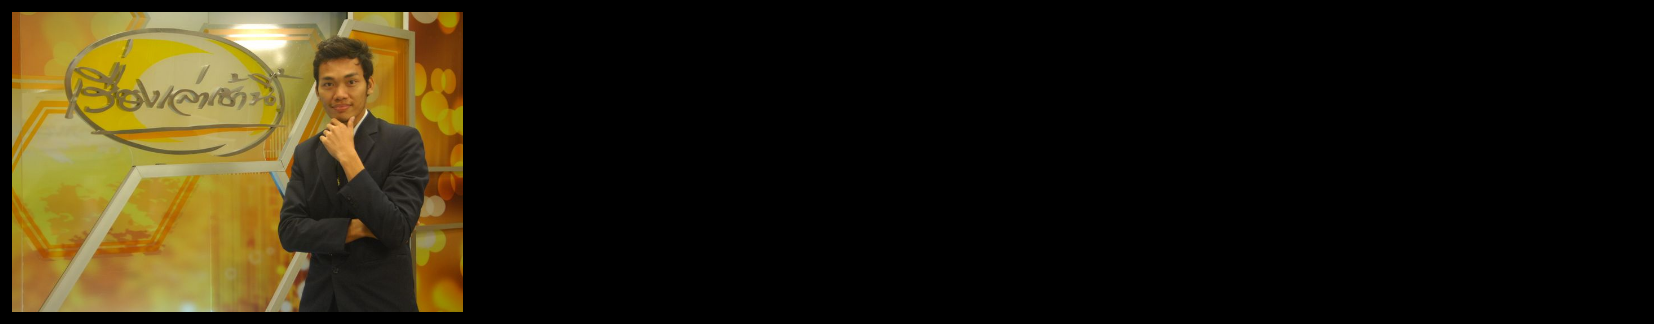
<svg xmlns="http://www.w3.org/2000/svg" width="1654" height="324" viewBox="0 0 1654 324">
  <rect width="100%" height="100%" fill="rgb(0,0,0)"/>
  <image x="12" y="12" width="451" height="300" href="pic1.png"/>
</svg>
